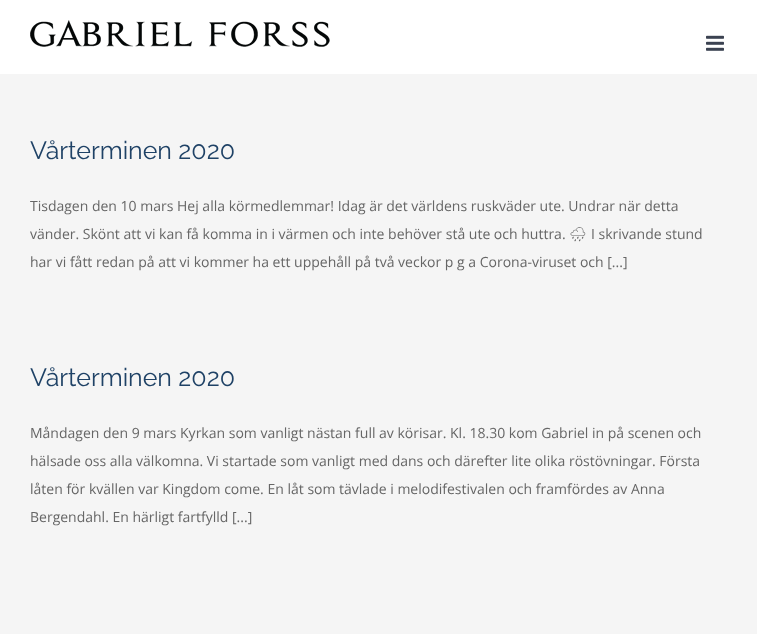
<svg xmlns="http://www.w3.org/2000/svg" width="757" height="634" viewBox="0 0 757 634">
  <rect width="100%" height="100%" fill="rgb(245,245,245)"/>
  <rect x="0" y="0" width="757" height="74" fill="rgb(255,255,255)"/>
  <image x="30" y="20" width="300" height="27" href="pic1.png"/>
  <image x="706" y="35" width="18" height="16" href="pic2.png"/>
  <text x="30" y="159" font-family="Raleway" font-size="25" fill="rgb(31,66,102)">Vårterminen 2020</text>
  <g font-family="Open Sans" font-size="14" fill="rgb(102,102,102)">
    <text x="30" y="211">Tisdagen den 10 mars Hej alla körmedlemmar! Idag är det världens ruskväder ute. Undrar när detta</text>
    <text x="30" y="239">vänder. Skönt att vi kan få komma in i värmen och inte behöver stå ute och huttra.</text>
  </g>
  <text x="569" y="239" font-family="Noto Emoji" font-size="14" fill="rgb(102,102,102)">🌧</text>
  <g font-family="Open Sans" font-size="14" fill="rgb(102,102,102)">
    <text x="591" y="239">I skrivande stund</text>
    <text x="30" y="267">har vi fått redan på att vi kommer ha ett uppehåll på två veckor p g a Corona-viruset och [...]</text>
  </g>
  <text x="30" y="386" font-family="Raleway" font-size="25" fill="rgb(31,66,102)">Vårterminen 2020</text>
  <g font-family="Open Sans" font-size="14" fill="rgb(102,102,102)">
    <text x="30" y="438">Måndagen den 9 mars Kyrkan som vanligt nästan full av körisar. Kl. 18.30 kom Gabriel in på scenen och</text>
    <text x="30" y="466">hälsade oss alla välkomna. Vi startade som vanligt med dans och därefter lite olika röstövningar. Första</text>
    <text x="30" y="494">låten för kvällen var Kingdom come. En låt som tävlade i melodifestivalen och framfördes av Anna</text>
    <text x="30" y="522">Bergendahl. En härligt fartfylld [...]</text>
  </g>
</svg>
